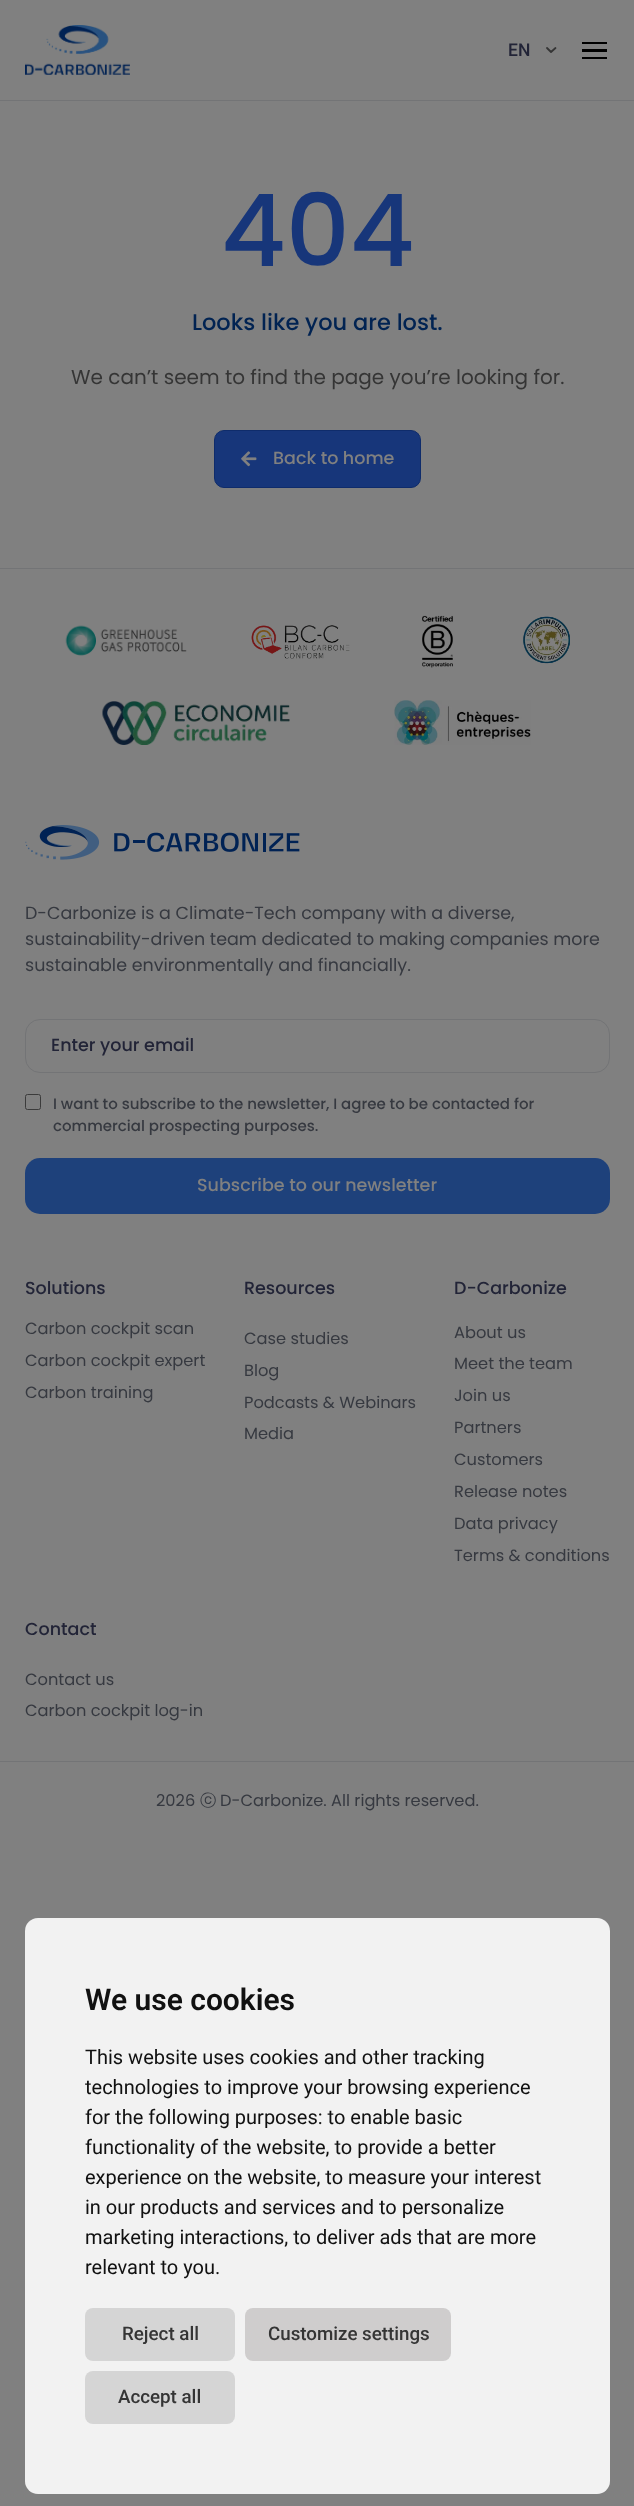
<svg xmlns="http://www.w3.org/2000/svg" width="634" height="2506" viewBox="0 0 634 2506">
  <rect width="100%" height="100%" fill="rgb(128,128,128)"/>
  <rect x="0" y="100" width="634" height="1" fill="rgb(115,116,118)"/>
  <image x="25" y="25" width="105" height="50" href="pic1.png"/>
  <text x="508" y="56" font-family="Roboto" font-size="17.5" font-weight="500" fill="rgb(34,36,55)">EN</text>
  <path d="M547 48L551 52L555.5 48" fill="none" stroke="rgb(53,53,53)" stroke-width="1.8" stroke-linecap="round" stroke-linejoin="round"/>
  <rect x="582" y="42" width="25" height="2" fill="rgb(0,0,0)"/>
  <rect x="582" y="49" width="25" height="3" fill="rgb(0,0,0)"/>
  <rect x="582" y="57" width="25" height="2" fill="rgb(0,0,0)"/>
  <text x="221" y="266" font-family="Poppins" font-size="100" font-weight="500" fill="rgb(23,54,122)">404</text>
  <text x="192" y="330" font-family="Poppins" font-size="22.5" font-weight="500" fill="rgb(1,35,82)">Looks like you are lost.</text>
  <text x="71" y="384" font-family="Poppins" font-size="20" fill="rgb(53,53,53)">We can’t seem to find the page you’re looking for.</text>
  <rect x="214.5" y="430.5" width="206" height="57" rx="9.5" fill="rgb(23,54,122)" stroke="rgb(15,44,107)"/>
  <image x="241" y="451" width="16" height="16" href="pic2.png"/>
  <text x="273" y="464" font-family="Poppins" font-size="17.5" font-weight="500" fill="rgb(128,128,128)">Back to home</text>
  <rect x="0" y="568" width="634" height="1" fill="rgb(115,116,118)"/>
  <image x="65" y="625" width="122" height="31" href="pic3.png"/>
  <image x="251" y="625" width="99" height="34" href="pic4.png"/>
  <image x="422" y="615" width="31" height="53" href="pic5.png"/>
  <image x="523" y="616" width="47" height="48" href="pic6.png"/>
  <image x="102" y="701" width="188" height="44" href="pic7.png"/>
  <image x="394" y="700" width="137" height="45" href="pic8.png"/>
  <image x="25" y="825" width="275" height="35" href="pic9.png"/>
  <g font-family="Poppins" font-size="17.5" fill="rgb(54,57,64)">
    <text>
      <tspan x="25" y="919">D-Carbonize is a Climate-Tech company with a diverse,</tspan>
      <tspan x="25" y="945">sustainability-driven team dedicated to making companies more</tspan>
      <tspan x="25" y="971">sustainable environmentally and financially.</tspan>
    </text>
  </g>
  <rect x="25.5" y="1019.5" width="584" height="53" rx="14.5" fill="none" stroke="rgb(115,116,118)"/>
  <text x="51" y="1051" font-family="Poppins" font-size="17.5" font-weight="500" fill="rgb(34,36,55)">Enter your email</text>
  <rect x="25.5" y="1094.5" width="15" height="15" rx="2" fill="none" stroke="rgb(59,59,59)"/>
  <g font-family="Poppins" font-size="15" font-weight="500" fill="rgb(54,57,64)">
    <text>
      <tspan x="53" y="1109">I want to subscribe to the newsletter, I agree to be contacted for</tspan>
      <tspan x="53" y="1131">commercial prospecting purposes.</tspan>
    </text>
  </g>
  <rect x="25" y="1158" width="585" height="56" rx="15" fill="rgb(30,65,123)"/>
  <text x="197" y="1191" font-family="Poppins" font-size="17.5" font-weight="500" fill="rgb(128,128,128)">Subscribe to our newsletter</text>
  <text x="25" y="1294" font-family="Poppins" font-size="17.5" font-weight="500" fill="rgb(34,36,55)">Solutions</text>
  <g font-family="Poppins" font-size="16.25" fill="rgb(54,57,64)">
    <text>
      <tspan x="25" y="1334">Carbon cockpit scan</tspan>
      <tspan x="25" y="1366">Carbon cockpit expert</tspan>
      <tspan x="25" y="1398">Carbon training</tspan>
    </text>
  </g>
  <text x="244" y="1294" font-family="Poppins" font-size="17.5" font-weight="500" fill="rgb(34,36,55)">Resources</text>
  <g font-family="Poppins" font-size="16.25" fill="rgb(54,57,64)">
    <text>
      <tspan x="244" y="1344">Case studies</tspan>
      <tspan x="244" y="1376">Blog</tspan>
      <tspan x="244" y="1408">Podcasts &amp; Webinars</tspan>
      <tspan x="244" y="1439">Media</tspan>
    </text>
  </g>
  <text x="454" y="1294" font-family="Poppins" font-size="17.5" font-weight="500" fill="rgb(34,36,55)">D-Carbonize</text>
  <g font-family="Poppins" font-size="16.25" fill="rgb(54,57,64)">
    <text>
      <tspan x="454" y="1338">About us</tspan>
      <tspan x="454" y="1369">Meet the team</tspan>
      <tspan x="454" y="1401">Join us</tspan>
      <tspan x="454" y="1433">Partners</tspan>
      <tspan x="454" y="1465">Customers</tspan>
      <tspan x="454" y="1497">Release notes</tspan>
      <tspan x="454" y="1529">Data privacy</tspan>
      <tspan x="454" y="1561">Terms &amp; conditions</tspan>
    </text>
  </g>
  <text x="25" y="1635" font-family="Poppins" font-size="17.5" font-weight="500" fill="rgb(34,36,55)">Contact</text>
  <g font-family="Poppins" font-size="16.25" fill="rgb(54,57,64)">
    <text>
      <tspan x="25" y="1685">Contact us</tspan>
      <tspan x="25" y="1716">Carbon cockpit log-in</tspan>
    </text>
  </g>
  <rect x="0" y="1761" width="634" height="1" fill="rgb(115,116,118)"/>
  <text x="156" y="1806" font-family="Poppins" font-size="16.25" fill="rgb(54,57,64)">2026</text>
  <text x="200" y="1806" font-family="WenQuanYi Zen Hei" font-size="16.25" font-weight="500" fill="rgb(54,57,64)">ⓒ</text>
  <text x="220" y="1806" font-family="Poppins" font-size="16.25" fill="rgb(54,57,64)">D-Carbonize. All rights reserved.</text>
  <rect x="25" y="1918" width="585" height="576" rx="13" fill="rgb(242,242,242)"/>
  <text x="85" y="2010" font-family="Roboto" font-size="30" font-weight="600" fill="rgb(17,17,17)">We use cookies</text>
  <g font-family="Roboto" font-size="20" fill="rgb(17,17,17)">
    <text>
      <tspan x="85" y="2064">This website uses cookies and other tracking</tspan>
      <tspan x="85" y="2094">technologies to improve your browsing experience</tspan>
      <tspan x="85" y="2124">for the following purposes: to enable basic</tspan>
      <tspan x="85" y="2154">functionality of the website, to provide a better</tspan>
      <tspan x="85" y="2184">experience on the website, to measure your interest</tspan>
      <tspan x="85" y="2214">in our products and services and to personalize</tspan>
      <tspan x="85" y="2244">marketing interactions, to deliver ads that are more</tspan>
      <tspan x="85" y="2274">relevant to you.</tspan>
    </text>
  </g>
  <rect x="85" y="2308" width="150" height="53" rx="8" fill="rgb(213,213,213)"/>
  <text x="122" y="2340" font-family="Roboto" font-size="18.75" font-weight="500" fill="rgb(53,53,53)">Reject all</text>
  <rect x="245" y="2308" width="206" height="53" rx="8" fill="rgb(207,205,205)"/>
  <text x="268" y="2340" font-family="Roboto" font-size="18.75" font-weight="500" fill="rgb(53,53,53)">Customize settings</text>
  <rect x="85" y="2371" width="150" height="53" rx="8" fill="rgb(213,213,213)"/>
  <text x="118" y="2403" font-family="Roboto" font-size="18.75" font-weight="500" fill="rgb(53,53,53)">Accept all</text>
</svg>
